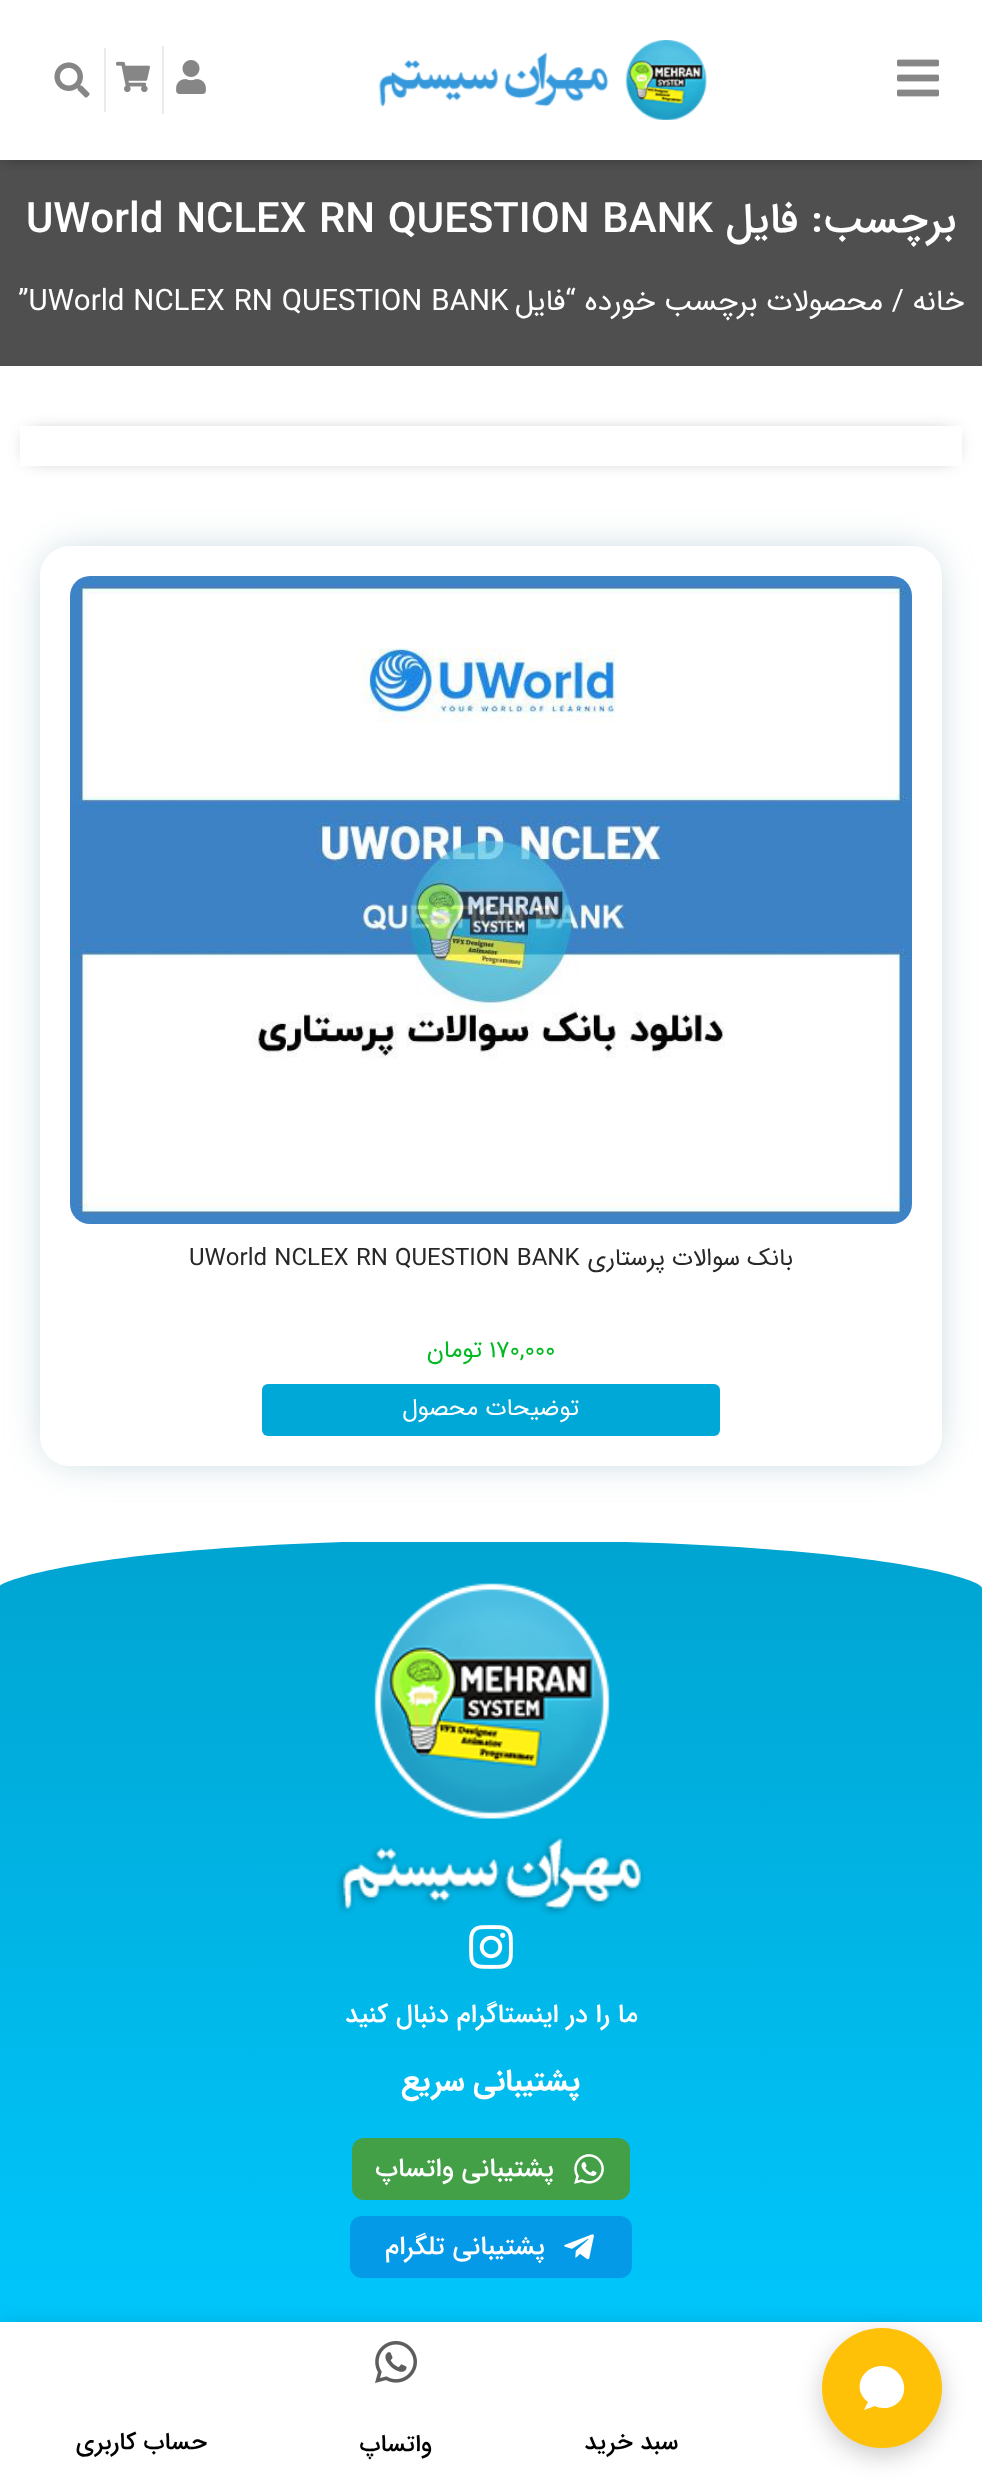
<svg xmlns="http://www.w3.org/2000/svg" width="982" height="2488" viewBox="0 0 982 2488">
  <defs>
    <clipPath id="clip1"><rect x="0" y="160" width="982" height="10"/></clipPath>
    <clipPath id="clip2"><path d="M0 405H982V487H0ZM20 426H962V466H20Z" clip-rule="evenodd"/></clipPath>
    <clipPath id="clip3"><path d="M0 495H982V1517H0ZM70 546H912C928.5 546 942 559.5 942 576V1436C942 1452.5 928.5 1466 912 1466H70C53.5 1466 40 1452.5 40 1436V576C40 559.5 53.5 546 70 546Z" clip-rule="evenodd"/></clipPath>
    <linearGradient id="g1" gradientUnits="userSpaceOnUse" x1="491" y1="1542" x2="491" y2="2388"><stop offset="0" stop-color="rgb(0,164,209)"/><stop offset="1" stop-color="rgb(0,201,255)"/></linearGradient>
    <clipPath id="clip4"><rect x="0" y="1540" width="982" height="50"/></clipPath>
  </defs>
  <rect width="100%" height="100%" fill="rgb(255,255,255)"/>
  <rect x="0" y="160" width="982" height="206" fill="rgb(79,79,79)"/>
  <g clip-path="url(#clip1)">
    <rect x="4" y="4" width="974" height="152" fill="rgba(0,0,0,0.5)" filter="blur(8px)"/>
  </g>
  <image x="897" y="59" width="42" height="38" href="pic1.png"/>
  <image x="378" y="40" width="329" height="80" href="pic2.png"/>
  <image x="176" y="60" width="30" height="34" href="pic3.png"/>
  <rect x="162" y="46" width="2" height="68" fill="rgb(235,235,235)"/>
  <image x="116" y="61" width="34" height="32" href="pic4.png"/>
  <rect x="104" y="48" width="2" height="64" fill="rgb(235,235,235)"/>
  <image x="54" y="62" width="36" height="36" href="pic5.png"/>
  <text x="956" y="232" font-family="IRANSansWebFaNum" font-size="42" font-weight="500" direction="rtl" fill="rgb(255,255,255)">برچسب: فایل</text>
  <text x="26" y="232" font-family="IRANSansWebFaNum" font-size="42" font-weight="500" fill="rgb(255,255,255)">UWorld NCLEX RN QUESTION BANK</text>
  <g font-family="IRANSansWebFaNum" font-size="29.5" direction="rtl" fill="rgb(255,255,255)">
    <text x="964" y="310">خانه</text>
    <text x="904" y="310">/ محصولات برچسب خورده “فایل</text>
  </g>
  <text x="18" y="310" font-family="IRANSansWebFaNum" font-size="29.5" fill="rgb(255,255,255)">”UWorld NCLEX RN QUESTION BANK</text>
  <g clip-path="url(#clip2)">
    <rect x="30" y="436" width="922" height="20" fill="rgba(0,0,0,0.5)" filter="blur(10px)"/>
  </g>
  <g clip-path="url(#clip3)">
    <rect x="50" y="556" width="882" height="900" rx="20" fill="rgba(96,147,166,0.5)" filter="blur(20px)"/>
  </g>
  <image x="70" y="576" width="842" height="648" href="pic6.png"/>
  <text x="793" y="1265" font-family="IRANSansWebFaNum" font-size="24" direction="rtl" fill="rgb(40,40,40)">بانک سوالات پرستاری</text>
  <text x="189" y="1265" font-family="IRANSansWebFaNum" font-size="24" fill="rgb(40,40,40)">UWorld NCLEX RN QUESTION BANK</text>
  <text x="489" y="1357" font-family="IRANSansWebFaNum" font-size="24" fill="rgb(0,186,33)">170,000</text>
  <text x="482" y="1357" font-family="IRANSansWebFaNum" font-size="24" direction="rtl" fill="rgb(0,186,33)">تومان</text>
  <rect x="262" y="1384" width="458" height="52" rx="6" fill="rgb(0,168,216)"/>
  <text x="579" y="1415" font-family="IRANSansWebFaNum" font-size="24" direction="rtl" fill="rgb(255,255,255)">توضیحات محصول</text>
  <rect x="0" y="1542" width="982" height="780" fill="url(#g1)"/>
  <rect x="0" y="2322" width="982" height="166" fill="rgba(0,0,0,0.12)" filter="blur(10px)"/>
  <rect x="0" y="2322" width="982" height="166" fill="rgb(255,255,255)"/>
  <rect x="822" y="2336" width="120" height="120" rx="60" fill="rgba(0,0,0,0.2)" filter="blur(12px)"/>
  <circle cx="882" cy="2388" r="60" fill="rgb(255,193,7)"/>
  <path d="M882 2366C862 2366 851 2389 868 2402L864 2410L875 2406C878 2408 883 2408 887 2408C914 2403 907 2366 882 2366Z" fill="rgb(255,255,255)"/>
  <g clip-path="url(#clip4)">
    <path d="M490 1540C858 1540 982 1578 982 1588V1538H-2V1588C-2 1579 122 1539 490 1540Z" fill="rgb(255,255,255)"/>
  </g>
  <image x="336" y="1583" width="308" height="332" href="pic7.png"/>
  <image x="469" y="1925" width="44" height="44" href="pic8.png"/>
  <text x="638" y="2022" font-family="IRANSansWebFaNum" font-size="26" font-weight="500" direction="rtl" fill="rgb(255,255,255)">ما را در اینستاگرام دنبال کنید</text>
  <text x="580" y="2090" font-family="IRANSansWebFaNum" font-size="30" font-weight="bold" direction="rtl" fill="rgb(255,255,255)">پشتیبانی سریع</text>
  <rect x="352" y="2138" width="278" height="62" rx="12" fill="rgb(67,160,71)"/>
  <image x="574" y="2154" width="30" height="30" href="pic9.png"/>
  <text x="554" y="2176" font-family="IRANSansWebFaNum" font-size="26" font-weight="500" direction="rtl" fill="rgb(255,255,255)">پشتیبانی واتساپ</text>
  <rect x="350" y="2216" width="282" height="62" rx="12" fill="rgb(4,154,231)"/>
  <image x="564" y="2234" width="30" height="26" href="pic10.png"/>
  <text x="545" y="2254" font-family="IRANSansWebFaNum" font-size="26" font-weight="500" direction="rtl" fill="rgb(255,255,255)">پشتیبانی تلگرام</text>
  <text x="678" y="2449" font-family="IRANSansWebFaNum" font-size="24" font-weight="500" direction="rtl" fill="rgb(0,0,0)">سبد خرید</text>
  <image x="375" y="2341" width="42" height="42" href="pic11.png"/>
  <g font-family="IRANSansWebFaNum" font-size="24" font-weight="500" direction="rtl" fill="rgb(0,0,0)">
    <text x="432" y="2451">واتساپ</text>
    <text x="207" y="2449">حساب کاربری</text>
  </g>
</svg>
